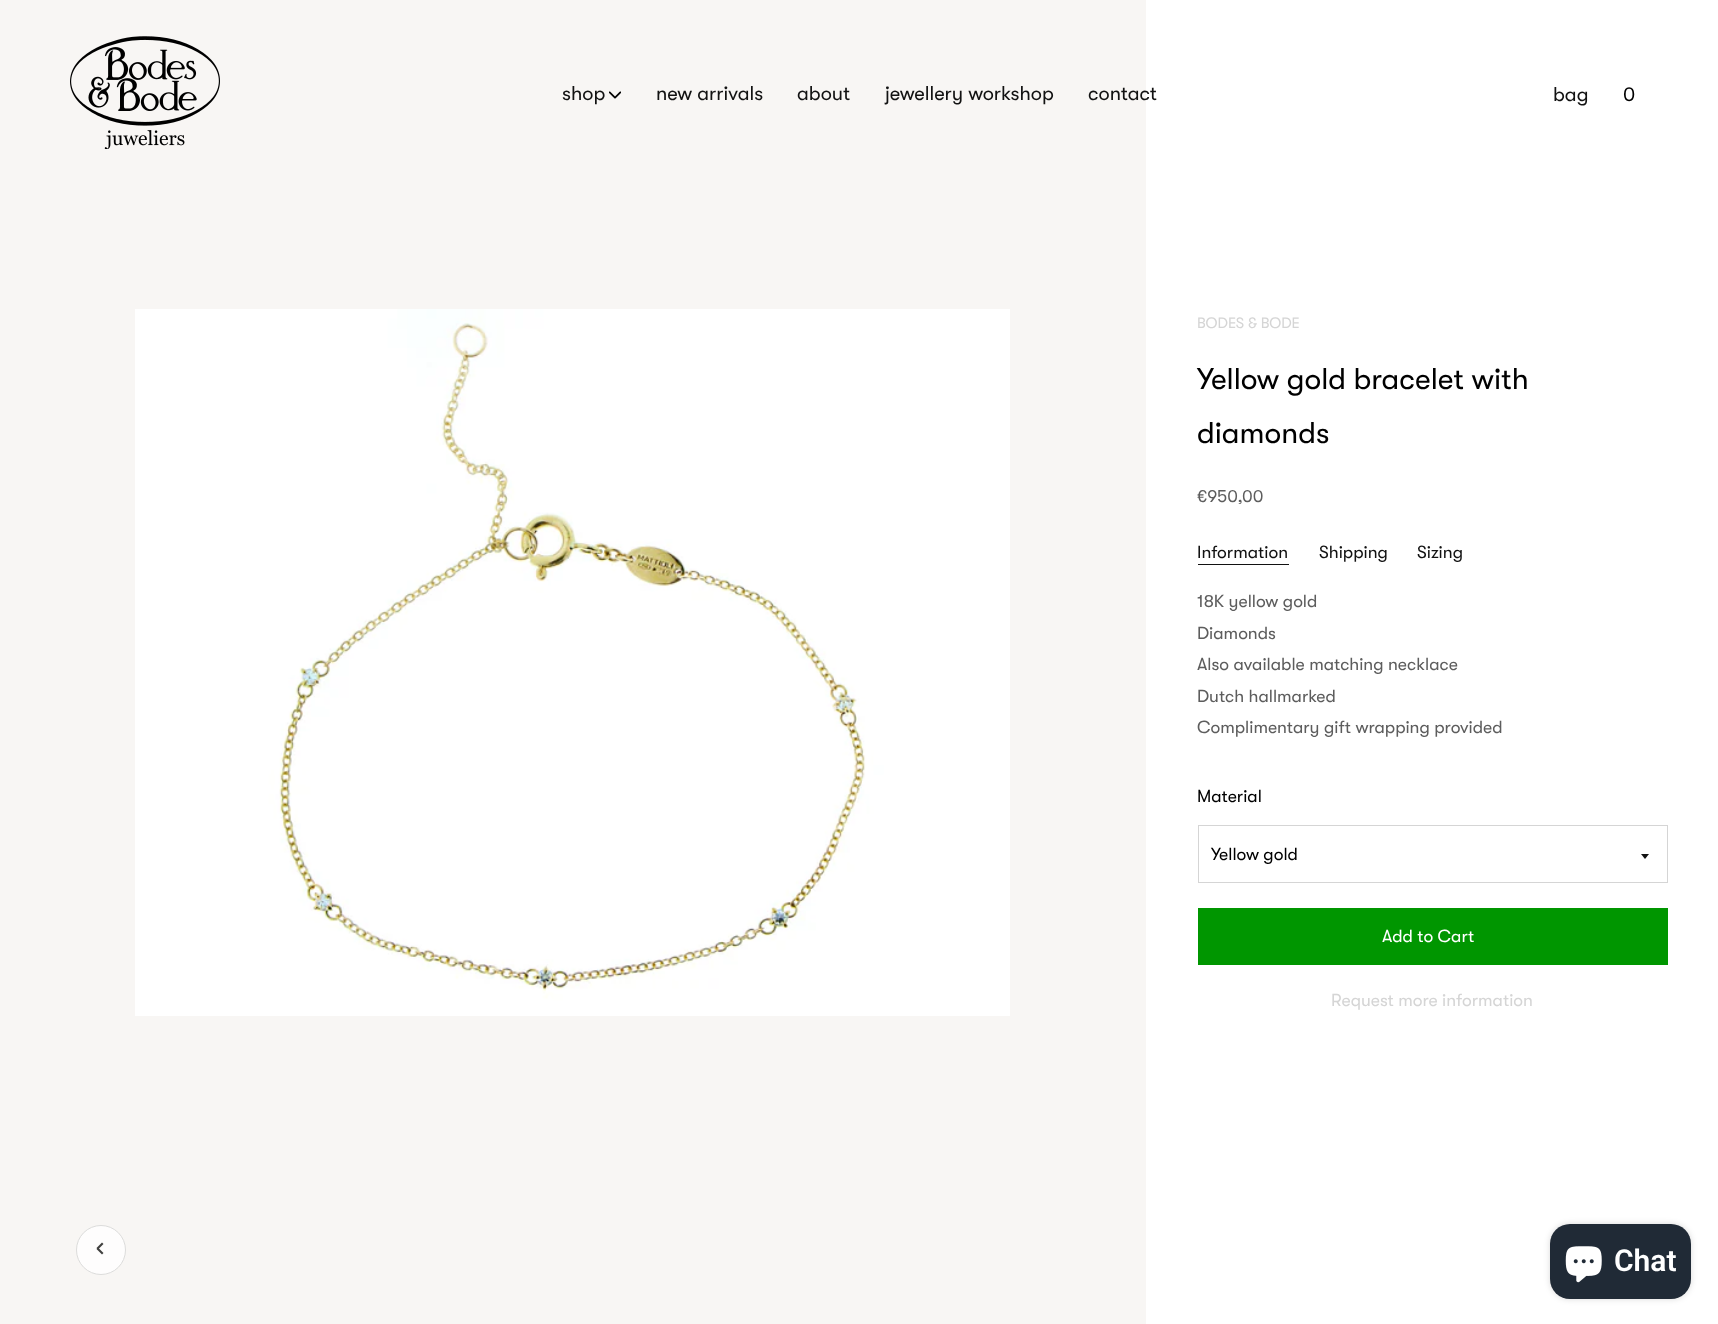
<svg xmlns="http://www.w3.org/2000/svg" width="1718" height="1324" viewBox="0 0 1718 1324">
  <rect width="100%" height="100%" fill="rgb(255,255,255)"/>
  <rect x="0" y="0" width="1146" height="1324" fill="rgb(248,246,244)"/>
  <image x="70" y="36" width="150" height="113" href="pic1.png"/>
  <text x="562" y="100" font-family="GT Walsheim" font-size="20" fill="rgb(18,18,18)">shop</text>
  <image x="609" y="91" width="12" height="8" href="pic2.png"/>
  <g font-family="GT Walsheim" font-size="20" fill="rgb(18,18,18)">
    <text x="656" y="100">new arrivals</text>
    <text x="797" y="100">about</text>
    <text x="885" y="100">jewellery workshop</text>
    <text x="1088" y="100">contact</text>
    <text x="1553" y="101">bag</text>
  </g>
  <text x="1623" y="101" font-family="GT Walsheim" font-size="20" fill="rgb(0,0,0)">0</text>
  <image x="135" y="309" width="875" height="707" href="pic3.png"/>
  <text x="1197" y="328" font-family="GT Walsheim" font-size="15" fill="rgb(213,213,213)">BODES &amp; BODE</text>
  <g font-family="GT Walsheim" font-size="30" fill="rgb(0,0,0)">
    <text>
      <tspan x="1197" y="389">Yellow gold bracelet with</tspan>
      <tspan x="1197" y="443">diamonds</tspan>
    </text>
  </g>
  <text x="1197" y="502" font-family="GT Walsheim" font-size="17.5" fill="rgb(93,93,93)">€950,00</text>
  <text x="1197" y="558" font-family="GT Walsheim" font-size="17.5" fill="rgb(18,18,18)">Information</text>
  <rect x="1198" y="564" width="91" height="1" fill="rgb(18,18,18)"/>
  <g font-family="GT Walsheim" font-size="17.5" fill="rgb(18,18,18)">
    <text x="1319" y="558">Shipping</text>
    <text x="1417" y="558">Sizing</text>
  </g>
  <g font-family="GT Walsheim" font-size="17.5" fill="rgb(93,93,93)">
    <text>
      <tspan x="1197" y="607">18K yellow gold</tspan>
      <tspan x="1197" y="639">Diamonds</tspan>
      <tspan x="1197" y="670">Also available matching necklace</tspan>
      <tspan x="1197" y="702">Dutch hallmarked</tspan>
      <tspan x="1197" y="733">Complimentary gift wrapping provided</tspan>
    </text>
  </g>
  <text x="1197" y="802" font-family="GT Walsheim" font-size="17.5" fill="rgb(0,0,0)">Material</text>
  <rect x="1198.5" y="825.5" width="469" height="57" fill="none" stroke="rgb(213,213,213)"/>
  <text x="1211" y="860" font-family="GT Walsheim" font-size="17.5" fill="rgb(0,0,0)">Yellow gold</text>
  <path d="M1641 854H1649L1645 859Z" fill="rgb(18,18,18)"/>
  <rect x="1198" y="908" width="470" height="57" fill="rgb(0,150,0)"/>
  <text x="1382" y="942" font-family="GT Walsheim" font-size="17.5" fill="rgb(255,255,255)">Add to Cart</text>
  <text x="1331" y="1006" font-family="GT Walsheim" font-size="17.5" fill="rgb(213,213,213)">Request more information</text>
  <circle cx="101" cy="1250" r="24.5" fill="rgb(254,253,253)" stroke="rgb(220,220,219)"/>
  <path d="M98 1247.5L103.5 1253L102 1254.5L96.5 1249Z" fill="rgb(64,64,63)"/>
  <path d="M96.5 1248L102 1242.5L103.5 1244L98 1249.5Z" fill="rgb(64,64,63)"/>
  <rect x="1550" y="1224" width="141" height="75" rx="20" fill="rgba(0,0,0,0.15)" filter="blur(3px)"/>
  <rect x="1550" y="1224" width="141" height="75" rx="20" fill="rgb(32,42,54)"/>
  <image x="1565" y="1246" width="37" height="37" href="pic4.png"/>
  <text x="1614" y="1271" font-family="Roboto" font-size="30" font-weight="600" fill="rgb(255,255,255)">Chat</text>
</svg>
